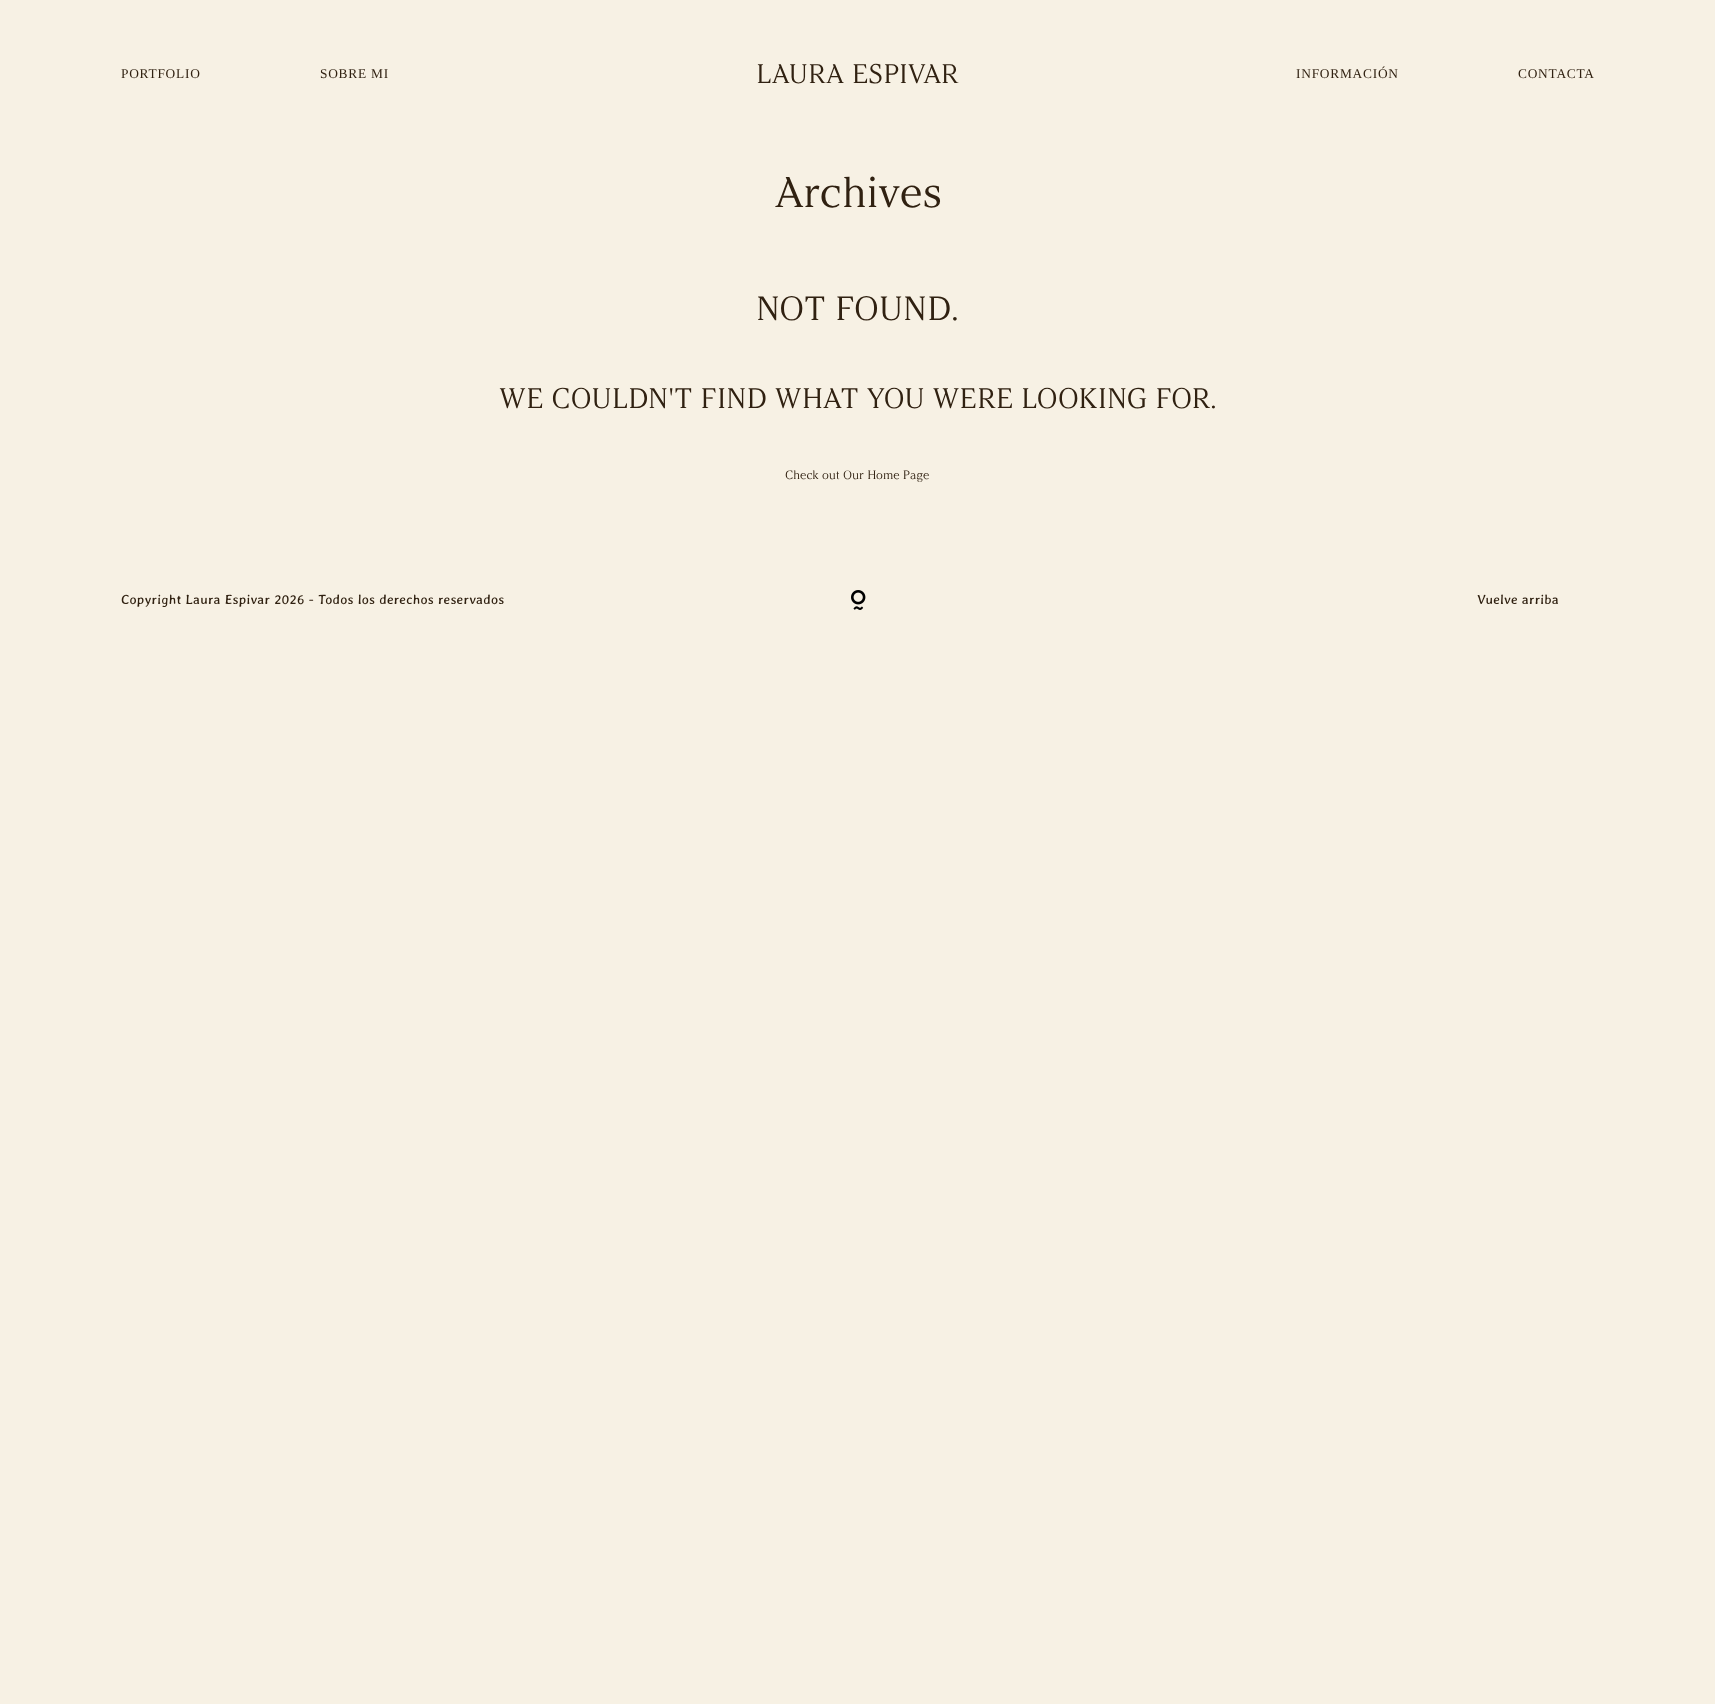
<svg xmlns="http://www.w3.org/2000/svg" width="1715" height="1704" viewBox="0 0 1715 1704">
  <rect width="100%" height="100%" fill="rgb(247,241,228)"/>
  <g font-family="Liberation Serif" font-size="13.4" letter-spacing="0.75" fill="rgb(48,33,17)">
    <text x="121" y="78">PORTFOLIO</text>
    <text x="320" y="78">SOBRE MI</text>
  </g>
  <text x="756" y="83" font-family="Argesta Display" font-size="26.75" fill="rgb(48,33,17)">LAURA ESPIVAR</text>
  <g font-family="Liberation Serif" font-size="13.4" letter-spacing="0.75" fill="rgb(48,33,17)">
    <text x="1296" y="78">INFORMACIÓN</text>
    <text x="1518" y="78">CONTACTA</text>
  </g>
  <text x="774" y="207" font-family="Argesta Display" font-size="43" fill="rgb(48,33,17)">Archives</text>
  <text x="756" y="320" font-family="Argesta Display" font-size="33.5" fill="rgb(48,33,17)">NOT FOUND.</text>
  <text x="499" y="408" font-family="Argesta Display" font-size="28.15" fill="rgb(48,33,17)">WE COULDN'T FIND WHAT YOU WERE LOOKING FOR.</text>
  <text x="785" y="479" font-family="Argesta Display" font-size="12" fill="rgb(48,33,17)">Check out Our Home Page</text>
  <text x="121" y="604" font-family="Averia Gruesa Libre" font-size="13.4" letter-spacing="0.27" fill="rgb(48,33,17)">Copyright Laura Espivar 2026 - Todos los derechos reservados</text>
  <image x="851" y="590" width="15" height="20" href="pic1.png"/>
  <text x="1477" y="604" font-family="Averia Gruesa Libre" font-size="13.4" letter-spacing="0.27" fill="rgb(48,33,17)">Vuelve arriba</text>
</svg>
